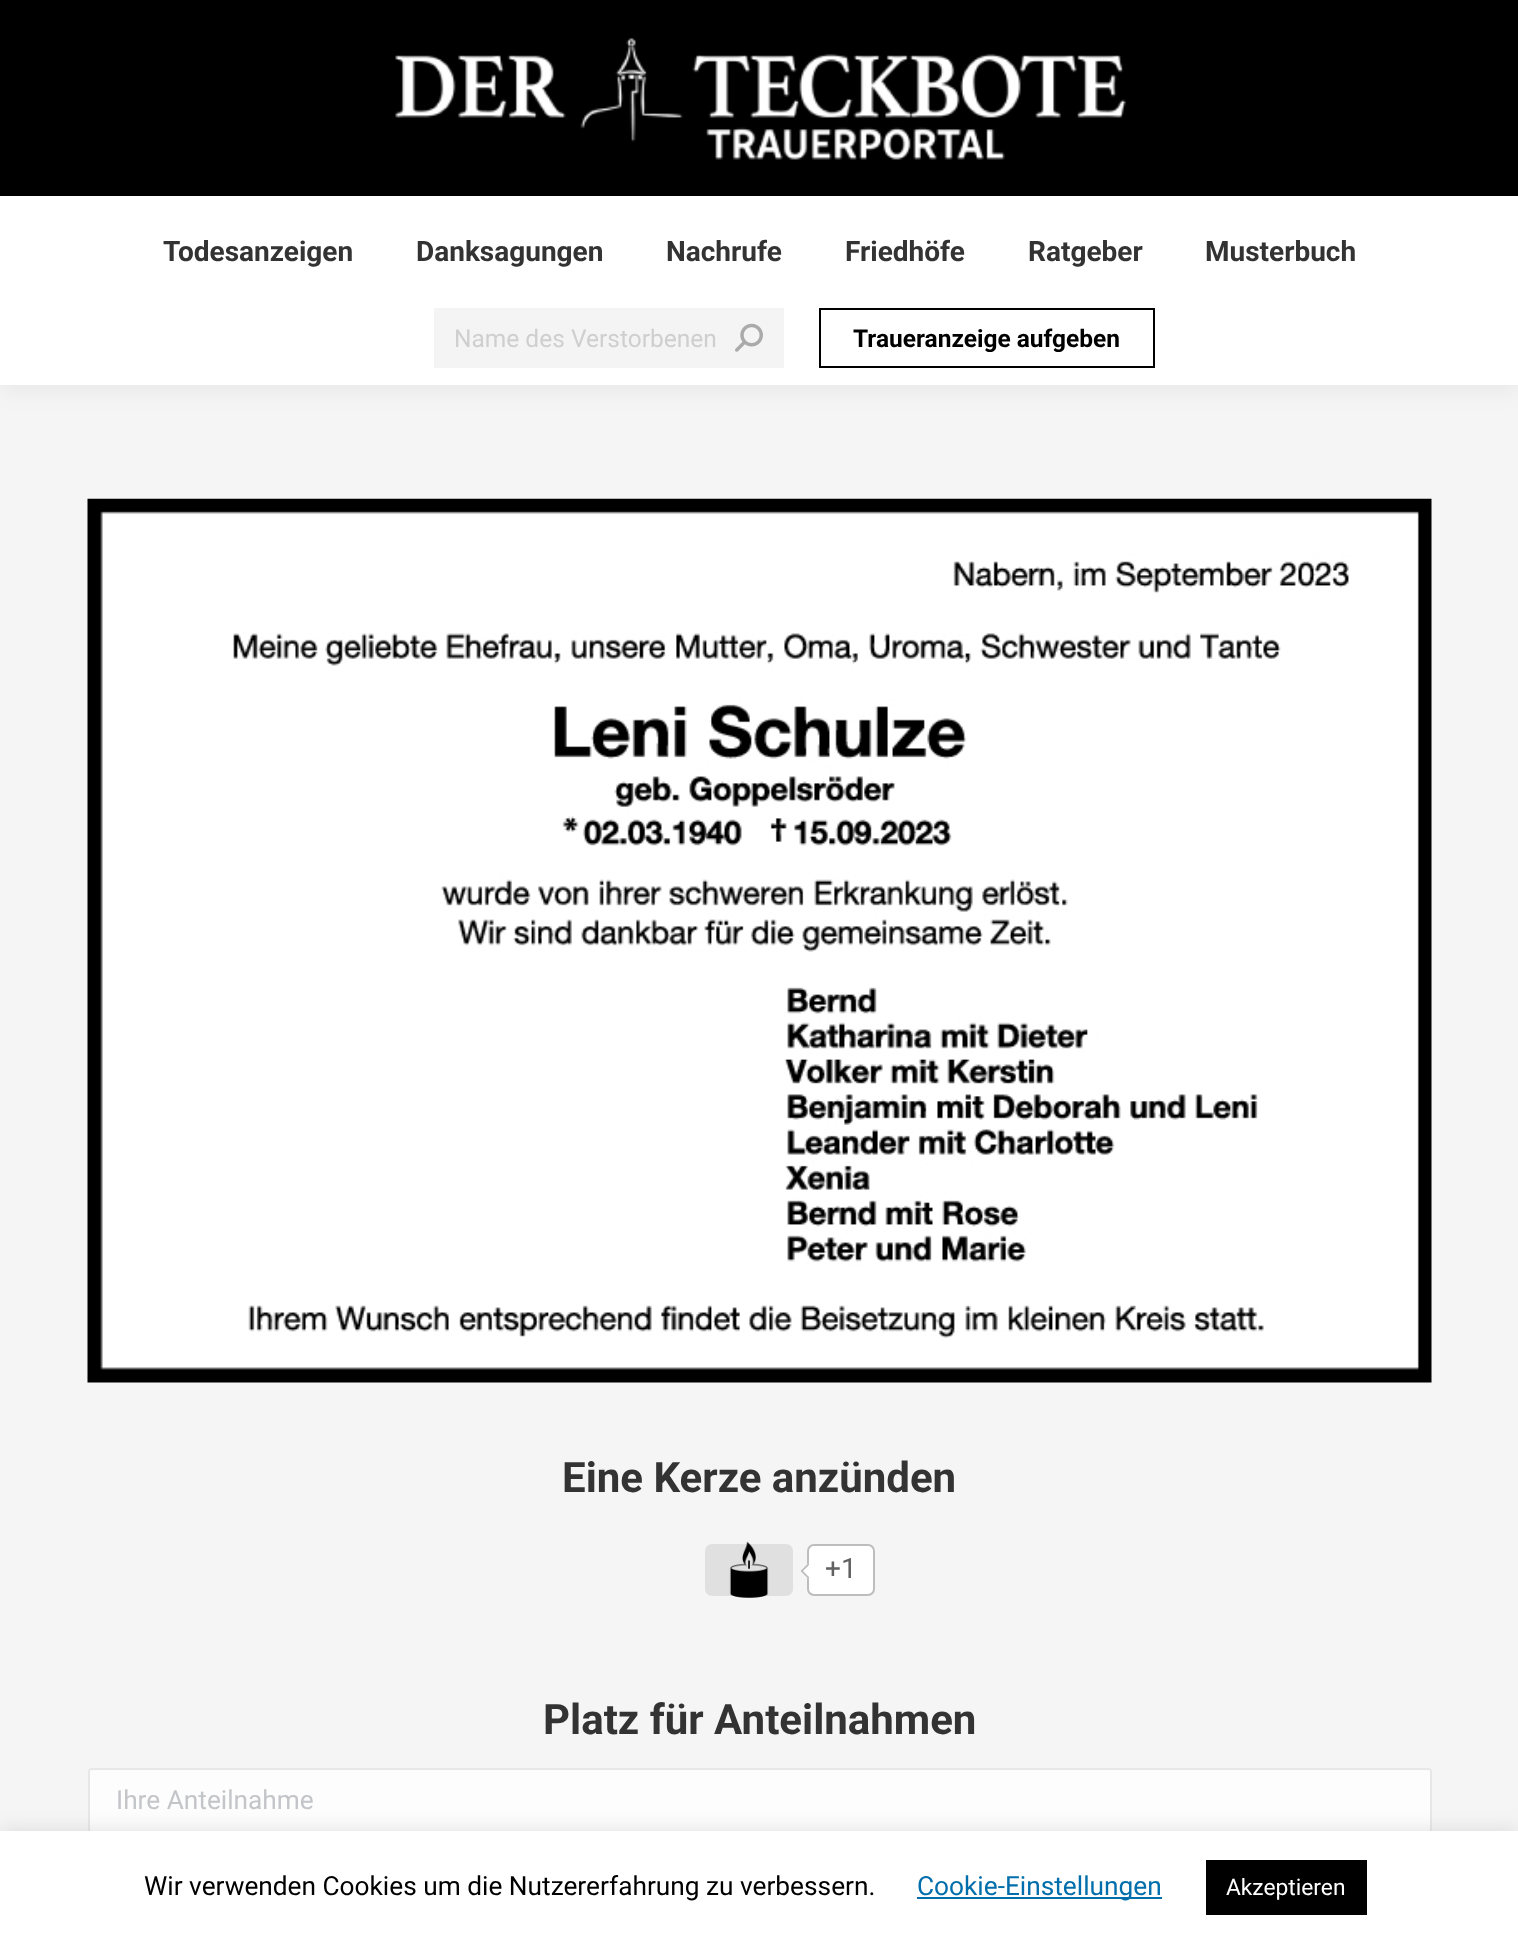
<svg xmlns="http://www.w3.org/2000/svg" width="1518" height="1944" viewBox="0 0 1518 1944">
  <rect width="100%" height="100%" fill="rgb(245,245,245)"/>
  <rect x="-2" y="-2" width="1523" height="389" fill="rgba(0,0,0,0.07)" filter="blur(13px)"/>
  <rect x="0" y="0" width="1518" height="196" fill="rgb(0,0,0)"/>
  <image x="395" y="38" width="731" height="122" href="pic1.png"/>
  <rect x="0" y="196" width="1518" height="189" fill="rgb(255,255,255)"/>
  <g font-family="Roboto" font-size="28" font-weight="bold" fill="rgb(51,51,51)">
    <text x="163" y="261">Todesanzeigen</text>
    <text x="416" y="261">Danksagungen</text>
    <text x="666" y="261">Nachrufe</text>
    <text x="845" y="261">Friedhöfe</text>
    <text x="1028" y="261">Ratgeber</text>
    <text x="1205" y="261">Musterbuch</text>
  </g>
  <rect x="434" y="308" width="350" height="60" fill="rgb(244,244,244)"/>
  <text x="454" y="347" font-family="Roboto" font-size="24.5" fill="rgb(207,207,207)">Name des Verstorbenen</text>
  <image x="735" y="323" width="28" height="29" href="pic2.png"/>
  <rect x="820" y="309" width="334" height="58" fill="none" stroke="rgb(0,0,0)" stroke-width="2"/>
  <text x="853" y="347" font-family="Roboto" font-size="24.5" font-weight="bold" fill="rgb(0,0,0)">Traueranzeige aufgeben</text>
  <image x="87" y="498" width="1345" height="885" href="pic3.png"/>
  <text x="562" y="1492" font-family="Roboto" font-size="42" font-weight="bold" fill="rgb(51,51,51)">Eine Kerze anzünden</text>
  <rect x="705" y="1544" width="88" height="52" rx="7" fill="rgb(224,224,224)"/>
  <image x="729" y="1541" width="40" height="57" href="pic4.png"/>
  <rect x="808" y="1545" width="66" height="50" rx="6" fill="rgb(255,255,255)" stroke="rgb(189,189,189)" stroke-width="2"/>
  <path d="M809 1562.5L818 1571L809 1579.5L800.5 1571Z" fill="rgb(255,255,255)"/>
  <path d="M809 1579.5L800.5 1571H803L809 1577ZM800.5 1571L809 1562.5V1565L803 1571Z" fill="rgb(189,189,189)"/>
  <text x="825" y="1578" font-family="Roboto" font-size="28" fill="rgb(97,97,97)">+1</text>
  <text x="543" y="1734" font-family="Roboto" font-size="42" font-weight="bold" fill="rgb(51,51,51)">Platz für Anteilnahmen</text>
  <rect x="88" y="1768" width="1344" height="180" rx="4" fill="rgb(253,253,253)"/>
  <rect x="89" y="1769" width="1342" height="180" rx="3" fill="none" stroke="rgba(51,51,51,0.11)" stroke-width="2"/>
  <text x="116" y="1809" font-family="Roboto" font-size="26.25" fill="rgb(196,197,201)">Ihre Anteilnahme</text>
  <rect x="0" y="1829" width="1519" height="114" fill="rgba(172,171,171,0.3)" filter="blur(9px)"/>
  <rect x="0" y="1831" width="1518" height="113" fill="rgb(255,255,255)"/>
  <text x="144" y="1895" font-family="Roboto" font-size="26.25" fill="rgb(0,0,0)">Wir verwenden Cookies um die Nutzererfahrung zu verbessern.</text>
  <rect x="917" y="1897" width="245" height="2" fill="rgb(0,110,171)"/>
  <text x="917" y="1895" font-family="Roboto" font-size="26.25" fill="rgb(0,110,171)">Cookie-Einstellungen</text>
  <rect x="1206" y="1860" width="161" height="55" fill="rgb(0,0,0)"/>
  <text x="1226" y="1895" font-family="Roboto" font-size="22.75" fill="rgb(255,255,255)">Akzeptieren</text>
</svg>
